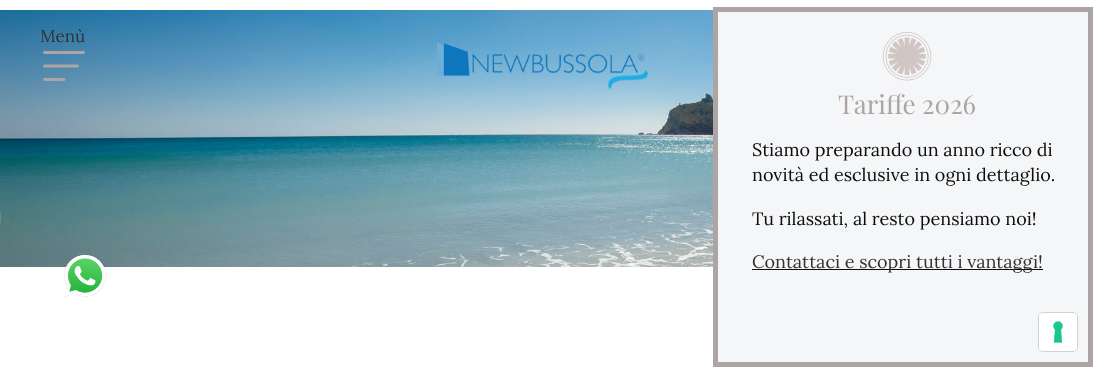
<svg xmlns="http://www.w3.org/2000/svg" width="1093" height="367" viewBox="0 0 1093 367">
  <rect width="100%" height="100%" fill="rgb(255,255,255)"/>
  <image x="0" y="10" width="713" height="257" href="pic1.png"/>
  <text x="40" y="42" font-family="Lora" font-size="17" fill="rgb(51,51,51)">Menù</text>
  <image x="43" y="51" width="42" height="30" href="pic2.png"/>
  <image x="437" y="43" width="211" height="46" href="pic3.png"/>
  <image x="64" y="255" width="42" height="42" href="pic4.png"/>
  <rect x="715.5" y="9.5" width="375" height="355" fill="rgb(245,246,248)" stroke="rgb(173,164,164)" stroke-width="5"/>
  <image x="882" y="32" width="50" height="49" href="pic5.png"/>
  <text x="838" y="114" font-family="Playfair Display" font-size="26" fill="rgb(173,164,164)">Tariffe 2026</text>
  <g font-family="Lora" font-size="18" fill="rgb(12,12,12)">
    <text>
      <tspan x="752" y="156">Stiamo preparando un anno ricco di</tspan>
      <tspan x="752" y="181">novità ed esclusive in ogni dettaglio.</tspan>
    </text>
    <text x="752" y="225">Tu rilassati, al resto pensiamo noi!</text>
  </g>
  <rect x="752" y="269" width="291" height="1" fill="rgb(12,12,12)"/>
  <text x="752" y="268" font-family="Lora" font-size="18" fill="rgb(51,51,51)">Contattaci e scopri tutti i vantaggi!</text>
  <rect x="1038.5" y="312.5" width="39" height="39" rx="4.5" fill="none" stroke="rgb(208,209,211)"/>
  <rect x="1039" y="313" width="38" height="38" rx="4" fill="rgb(255,255,255)"/>
  <image x="1053" y="321" width="10" height="22" href="pic6.png"/>
</svg>
